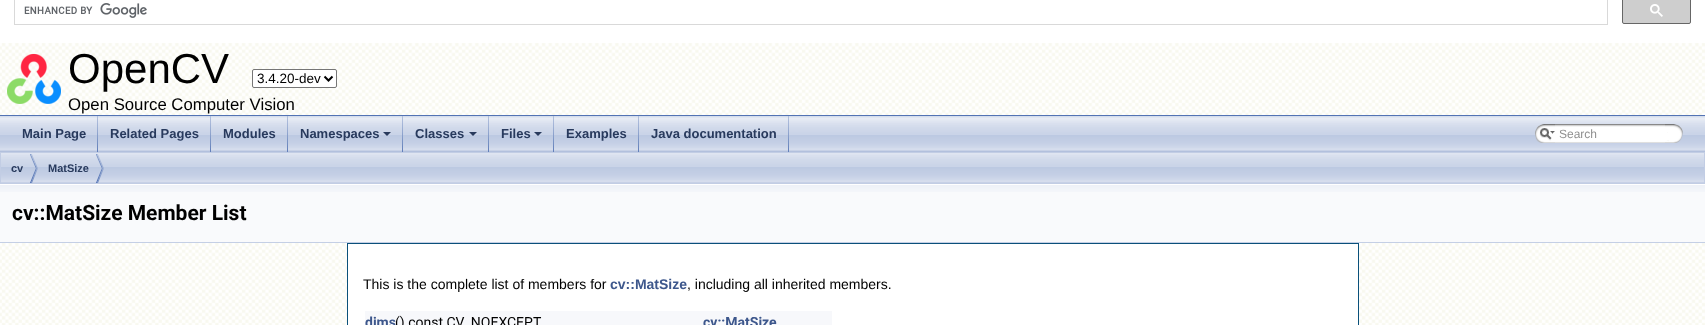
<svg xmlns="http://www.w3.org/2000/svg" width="1705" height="325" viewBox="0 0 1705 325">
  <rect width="100%" height="100%" fill="rgb(255,255,255)"/>
  <image x="0" y="43" width="1705" height="282" href="pic1.png"/>
  <rect x="0" y="115" width="1705" height="1" fill="rgb(83,115,180)"/>
  <rect x="14.5" y="-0.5" width="1593" height="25" fill="none" stroke="rgb(217,217,217)"/>
  <image x="24" y="3" width="123" height="15" href="pic2.png"/>
  <rect x="1622.5" y="-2.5" width="68" height="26" rx="1.5" fill="rgb(206,206,206)" stroke="rgb(102,102,102)"/>
  <image x="1650" y="4" width="13" height="13" href="pic3.png"/>
  <image x="7" y="54" width="54" height="50" href="pic4.png"/>
  <text x="68" y="83" font-family="Liberation Sans" font-size="42" fill="rgb(0,0,0)">OpenCV</text>
  <rect x="252.5" y="69.5" width="84" height="18" rx="1.5" fill="rgb(255,255,255)" stroke="rgb(118,118,118)"/>
  <path d="M324.5 76.5L328.5 80.5L332.5 76.5" fill="none" stroke="rgb(0,0,0)" stroke-width="2"/>
  <text x="257" y="83" font-family="Liberation Sans" font-size="13.5" fill="rgb(0,0,0)">3.4.20-dev</text>
  <text x="68" y="110" font-family="Liberation Sans" font-size="16.75" fill="rgb(0,0,0)">Open Source Computer Vision</text>
  <image x="0" y="116" width="1705" height="36" href="pic5.png"/>
  <image x="97" y="116" width="1" height="36" href="pic6.png"/>
  <text x="22" y="138" font-family="Liberation Sans" font-size="13" font-weight="bold" fill="rgb(40,58,93)">Main Page</text>
  <image x="210" y="116" width="1" height="36" href="pic6.png"/>
  <text x="110" y="138" font-family="Liberation Sans" font-size="13" font-weight="bold" fill="rgb(40,58,93)">Related Pages</text>
  <image x="287" y="116" width="1" height="36" href="pic6.png"/>
  <text x="223" y="138" font-family="Liberation Sans" font-size="13" font-weight="bold" fill="rgb(40,58,93)">Modules</text>
  <image x="402" y="116" width="1" height="36" href="pic6.png"/>
  <text x="300" y="138" font-family="Liberation Sans" font-size="13" font-weight="bold" fill="rgb(40,58,93)">Namespaces</text>
  <path d="M383 132H391L387 136Z" fill="rgb(40,58,93)"/>
  <image x="488" y="116" width="1" height="36" href="pic6.png"/>
  <text x="415" y="138" font-family="Liberation Sans" font-size="13" font-weight="bold" fill="rgb(40,58,93)">Classes</text>
  <path d="M469 132H477L473 136Z" fill="rgb(40,58,93)"/>
  <image x="553" y="116" width="1" height="36" href="pic6.png"/>
  <text x="501" y="138" font-family="Liberation Sans" font-size="13" font-weight="bold" fill="rgb(40,58,93)">Files</text>
  <path d="M534 132H542L538 136Z" fill="rgb(40,58,93)"/>
  <image x="638" y="116" width="1" height="36" href="pic6.png"/>
  <text x="566" y="138" font-family="Liberation Sans" font-size="13" font-weight="bold" fill="rgb(40,58,93)">Examples</text>
  <image x="788" y="116" width="1" height="36" href="pic6.png"/>
  <text x="651" y="138" font-family="Liberation Sans" font-size="13" font-weight="bold" fill="rgb(40,58,93)">Java documentation</text>
  <image x="1535" y="124" width="20" height="19" href="pic7.png"/>
  <image x="1540" y="128" width="15" height="12" href="pic8.png"/>
  <image x="1555" y="124" width="110" height="19" href="pic9.png"/>
  <text x="1559" y="138" font-family="Liberation Sans" font-size="12" fill="rgb(144,144,144)">Search</text>
  <image x="1665" y="124" width="18" height="19" href="pic10.png"/>
  <image x="1" y="153" width="1703" height="30" href="pic11.png"/>
  <rect x="0.5" y="152.5" width="1704" height="31" fill="none" stroke="rgb(194,205,228)"/>
  <image x="30" y="154" width="8" height="29" href="pic12.png"/>
  <text x="11" y="172" font-family="Liberation Sans" font-size="11" font-weight="bold" fill="rgb(40,58,93)">cv</text>
  <image x="96" y="154" width="8" height="29" href="pic12.png"/>
  <text x="48" y="172" font-family="Liberation Sans" font-size="11" font-weight="bold" fill="rgb(40,58,93)">MatSize</text>
  <rect x="0" y="192" width="1705" height="50" fill="rgb(249,250,252)"/>
  <image x="0" y="184" width="1705" height="8" href="pic13.png"/>
  <rect x="0" y="242" width="1705" height="1" fill="rgb(196,207,229)"/>
  <text x="12" y="220" font-family="Roboto" font-size="21" font-weight="bold" fill="rgb(0,0,0)">cv::MatSize Member List</text>
  <rect x="347.5" y="243.5" width="1011" height="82" fill="rgb(255,255,255)" stroke="rgb(10,80,122)"/>
  <text x="363" y="289" font-family="Liberation Sans" font-size="14" fill="rgb(0,0,0)">This is the complete list of members for</text>
  <text x="610" y="289" font-family="Liberation Sans" font-size="14" font-weight="bold" fill="rgb(61,87,140)">cv::MatSize</text>
  <text x="687" y="289" font-family="Liberation Sans" font-size="14" fill="rgb(0,0,0)">, including all inherited members.</text>
  <rect x="365" y="311" width="467" height="14" fill="rgb(247,248,251)"/>
  <text x="365" y="327" font-family="Roboto" font-size="14" font-weight="bold" fill="rgb(61,87,140)">dims</text>
  <text x="395" y="327" font-family="Roboto" font-size="14" fill="rgb(0,0,0)">() const CV_NOEXCEPT</text>
  <text x="703" y="327" font-family="Roboto" font-size="14" font-weight="bold" fill="rgb(61,87,140)">cv::MatSize</text>
</svg>
